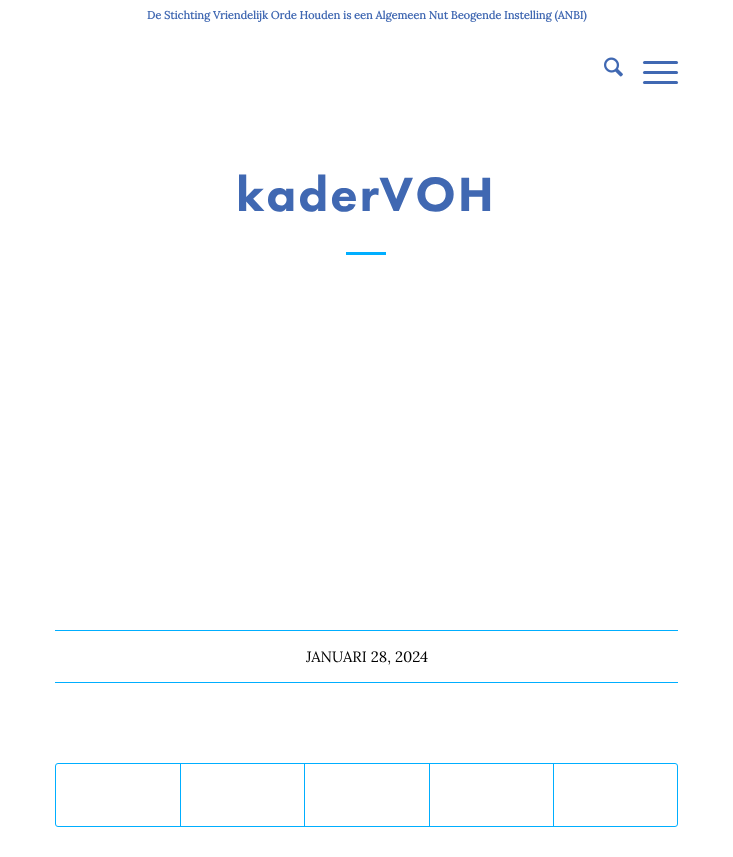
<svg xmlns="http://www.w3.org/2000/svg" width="733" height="857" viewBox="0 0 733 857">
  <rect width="100%" height="100%" fill="rgb(255,255,255)"/>
  <text x="147" y="19" font-family="Lora" font-size="11" font-weight="bold" fill="rgb(64,104,178)">De Stichting Vriendelijk Orde Houden is een Algemeen Nut Beogende Instelling (ANBI)</text>
  <image x="604" y="57" width="19" height="20" href="pic1.png"/>
  <rect x="643" y="71" width="35" height="3" rx="1.5" fill="rgb(64,104,178)"/>
  <rect x="643" y="61" width="35" height="3" rx="1.5" fill="rgb(64,104,178)"/>
  <rect x="643" y="81" width="35" height="3" rx="1.5" fill="rgb(64,104,178)"/>
  <text x="236" y="211" font-family="Futura PT" font-size="50" font-weight="900" letter-spacing="2" fill="rgb(64,104,178)">kaderVOH</text>
  <rect x="346" y="252" width="40" height="3" fill="rgb(0,174,255)"/>
  <rect x="55" y="630" width="623" height="1" fill="rgb(0,174,255)"/>
  <rect x="55" y="682" width="623" height="1" fill="rgb(0,174,255)"/>
  <text x="306" y="662" font-family="Lora" font-size="15" fill="rgb(0,0,0)">JANUARI 28, 2024</text>
  <rect x="55.5" y="763.5" width="622" height="63" rx="2.5" fill="none" stroke="rgb(0,174,255)"/>
  <rect x="180" y="764" width="1" height="62" fill="rgb(0,174,255)"/>
  <rect x="304" y="764" width="1" height="62" fill="rgb(0,174,255)"/>
  <rect x="429" y="764" width="1" height="62" fill="rgb(0,174,255)"/>
  <rect x="553" y="764" width="1" height="62" fill="rgb(0,174,255)"/>
</svg>
